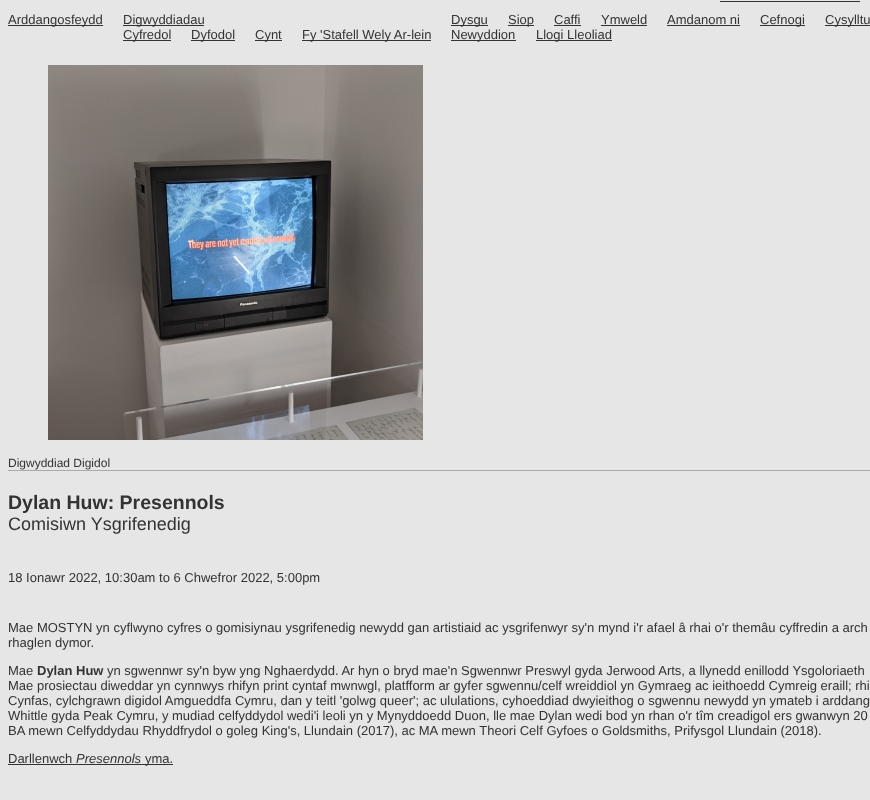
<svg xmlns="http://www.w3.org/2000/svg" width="870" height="800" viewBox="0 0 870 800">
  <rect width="100%" height="100%" fill="rgb(230,230,230)"/>
  <rect x="720" y="1" width="140" height="1" fill="rgb(51,51,51)"/>
  <rect x="8" y="25" width="95" height="1" fill="rgb(51,51,51)"/>
  <text x="8" y="24" font-family="Liberation Sans" font-size="13" fill="rgb(51,51,51)">Arddangosfeydd</text>
  <rect x="123" y="25" width="81" height="1" fill="rgb(51,51,51)"/>
  <text x="123" y="24" font-family="Liberation Sans" font-size="13" fill="rgb(51,51,51)">Digwyddiadau</text>
  <rect x="123" y="40" width="48" height="1" fill="rgb(51,51,51)"/>
  <text x="123" y="39" font-family="Liberation Sans" font-size="13" fill="rgb(51,51,51)">Cyfredol</text>
  <rect x="191" y="40" width="44" height="1" fill="rgb(51,51,51)"/>
  <text x="191" y="39" font-family="Liberation Sans" font-size="13" fill="rgb(51,51,51)">Dyfodol</text>
  <rect x="255" y="40" width="27" height="1" fill="rgb(51,51,51)"/>
  <text x="255" y="39" font-family="Liberation Sans" font-size="13" fill="rgb(51,51,51)">Cynt</text>
  <rect x="302" y="40" width="129" height="1" fill="rgb(51,51,51)"/>
  <text x="302" y="39" font-family="Liberation Sans" font-size="13" fill="rgb(51,51,51)">Fy 'Stafell Wely Ar-lein</text>
  <rect x="451" y="25" width="37" height="1" fill="rgb(51,51,51)"/>
  <text x="451" y="24" font-family="Liberation Sans" font-size="13" fill="rgb(51,51,51)">Dysgu</text>
  <rect x="508" y="25" width="26" height="1" fill="rgb(51,51,51)"/>
  <g font-family="Liberation Sans" font-size="13" fill="rgb(51,51,51)">
    <text x="508" y="24">Siop</text>
    <text x="554" y="24">Caffi</text>
  </g>
  <rect x="554" y="25" width="27" height="1" fill="rgb(51,51,51)"/>
  <text x="601" y="24" font-family="Liberation Sans" font-size="13" fill="rgb(51,51,51)">Ymweld</text>
  <rect x="601" y="25" width="46" height="1" fill="rgb(51,51,51)"/>
  <text x="667" y="24" font-family="Liberation Sans" font-size="13" fill="rgb(51,51,51)">Amdanom ni</text>
  <rect x="667" y="25" width="73" height="1" fill="rgb(51,51,51)"/>
  <rect x="760" y="25" width="45" height="1" fill="rgb(51,51,51)"/>
  <text x="760" y="24" font-family="Liberation Sans" font-size="13" fill="rgb(51,51,51)">Cefnogi</text>
  <rect x="825" y="25" width="45" height="1" fill="rgb(51,51,51)"/>
  <text x="825" y="24" font-family="Liberation Sans" font-size="13" fill="rgb(51,51,51)">Cysylltu</text>
  <rect x="451" y="40" width="65" height="1" fill="rgb(51,51,51)"/>
  <text x="451" y="39" font-family="Liberation Sans" font-size="13" fill="rgb(51,51,51)">Newyddion</text>
  <rect x="536" y="40" width="76" height="1" fill="rgb(51,51,51)"/>
  <text x="536" y="39" font-family="Liberation Sans" font-size="13" fill="rgb(51,51,51)">Llogi Lleoliad</text>
  <image x="48" y="65" width="375" height="375" href="pic1.png"/>
  <rect x="8" y="470" width="862" height="1" fill="rgb(170,170,170)"/>
  <text x="8" y="467" font-family="Liberation Sans" font-size="12" fill="rgb(51,51,51)">Digwyddiad Digidol</text>
  <text x="8" y="509" font-family="Liberation Sans" font-size="19.5" font-weight="bold" fill="rgb(51,51,51)">Dylan Huw: Presennols</text>
  <text x="8" y="530" font-family="Liberation Sans" font-size="18" fill="rgb(51,51,51)">Comisiwn Ysgrifenedig</text>
  <g font-family="Liberation Sans" font-size="13" fill="rgb(51,51,51)">
    <text x="8" y="582">18 Ionawr 2022, 10:30am to 6 Chwefror 2022, 5:00pm</text>
    <text>
      <tspan x="8" y="632">Mae MOSTYN yn cyflwyno cyfres o gomisiynau ysgrifenedig newydd gan artistiaid ac ysgrifenwyr sy'n mynd i'r afael â rhai o'r themâu cyffredin a arch</tspan>
      <tspan x="8" y="647">rhaglen dymor.</tspan>
    </text>
    <text x="8" y="675">Mae</text>
  </g>
  <text x="37" y="675" font-family="Liberation Sans" font-size="13" font-weight="bold" fill="rgb(51,51,51)">Dylan Huw</text>
  <g font-family="Liberation Sans" font-size="13" fill="rgb(51,51,51)">
    <text x="107" y="675">yn sgwennwr sy'n byw yng Nghaerdydd. Ar hyn o bryd mae'n Sgwennwr Preswyl gyda Jerwood Arts, a llynedd enillodd Ysgoloriaeth</text>
    <text>
      <tspan x="8" y="690">Mae prosiectau diweddar yn cynnwys rhifyn print cyntaf mwnwgl, platfform ar gyfer sgwennu/celf wreiddiol yn Gymraeg ac ieithoedd Cymreig eraill; rhi</tspan>
      <tspan x="8" y="705">Cynfas, cylchgrawn digidol Amgueddfa Cymru, dan y teitl 'golwg queer'; ac ululations, cyhoeddiad dwyieithog o sgwennu newydd yn ymateb i arddang</tspan>
      <tspan x="8" y="720">Whittle gyda Peak Cymru, y mudiad celfyddydol wedi'i leoli yn y Mynyddoedd Duon, lle mae Dylan wedi bod yn rhan o'r tîm creadigol ers gwanwyn 20</tspan>
      <tspan x="8" y="735">BA mewn Celfyddydau Rhyddfrydol o goleg King's, Llundain (2017), ac MA mewn Theori Celf Gyfoes o Goldsmiths, Prifysgol Llundain (2018).</tspan>
    </text>
    <text x="8" y="763">Darllenwch</text>
  </g>
  <text x="76" y="763" font-family="Liberation Sans" font-size="13" font-style="italic" fill="rgb(51,51,51)">Presennols</text>
  <rect x="8" y="764" width="165" height="1" fill="rgb(51,51,51)"/>
  <text x="145" y="763" font-family="Liberation Sans" font-size="13" fill="rgb(51,51,51)">yma.</text>
</svg>
